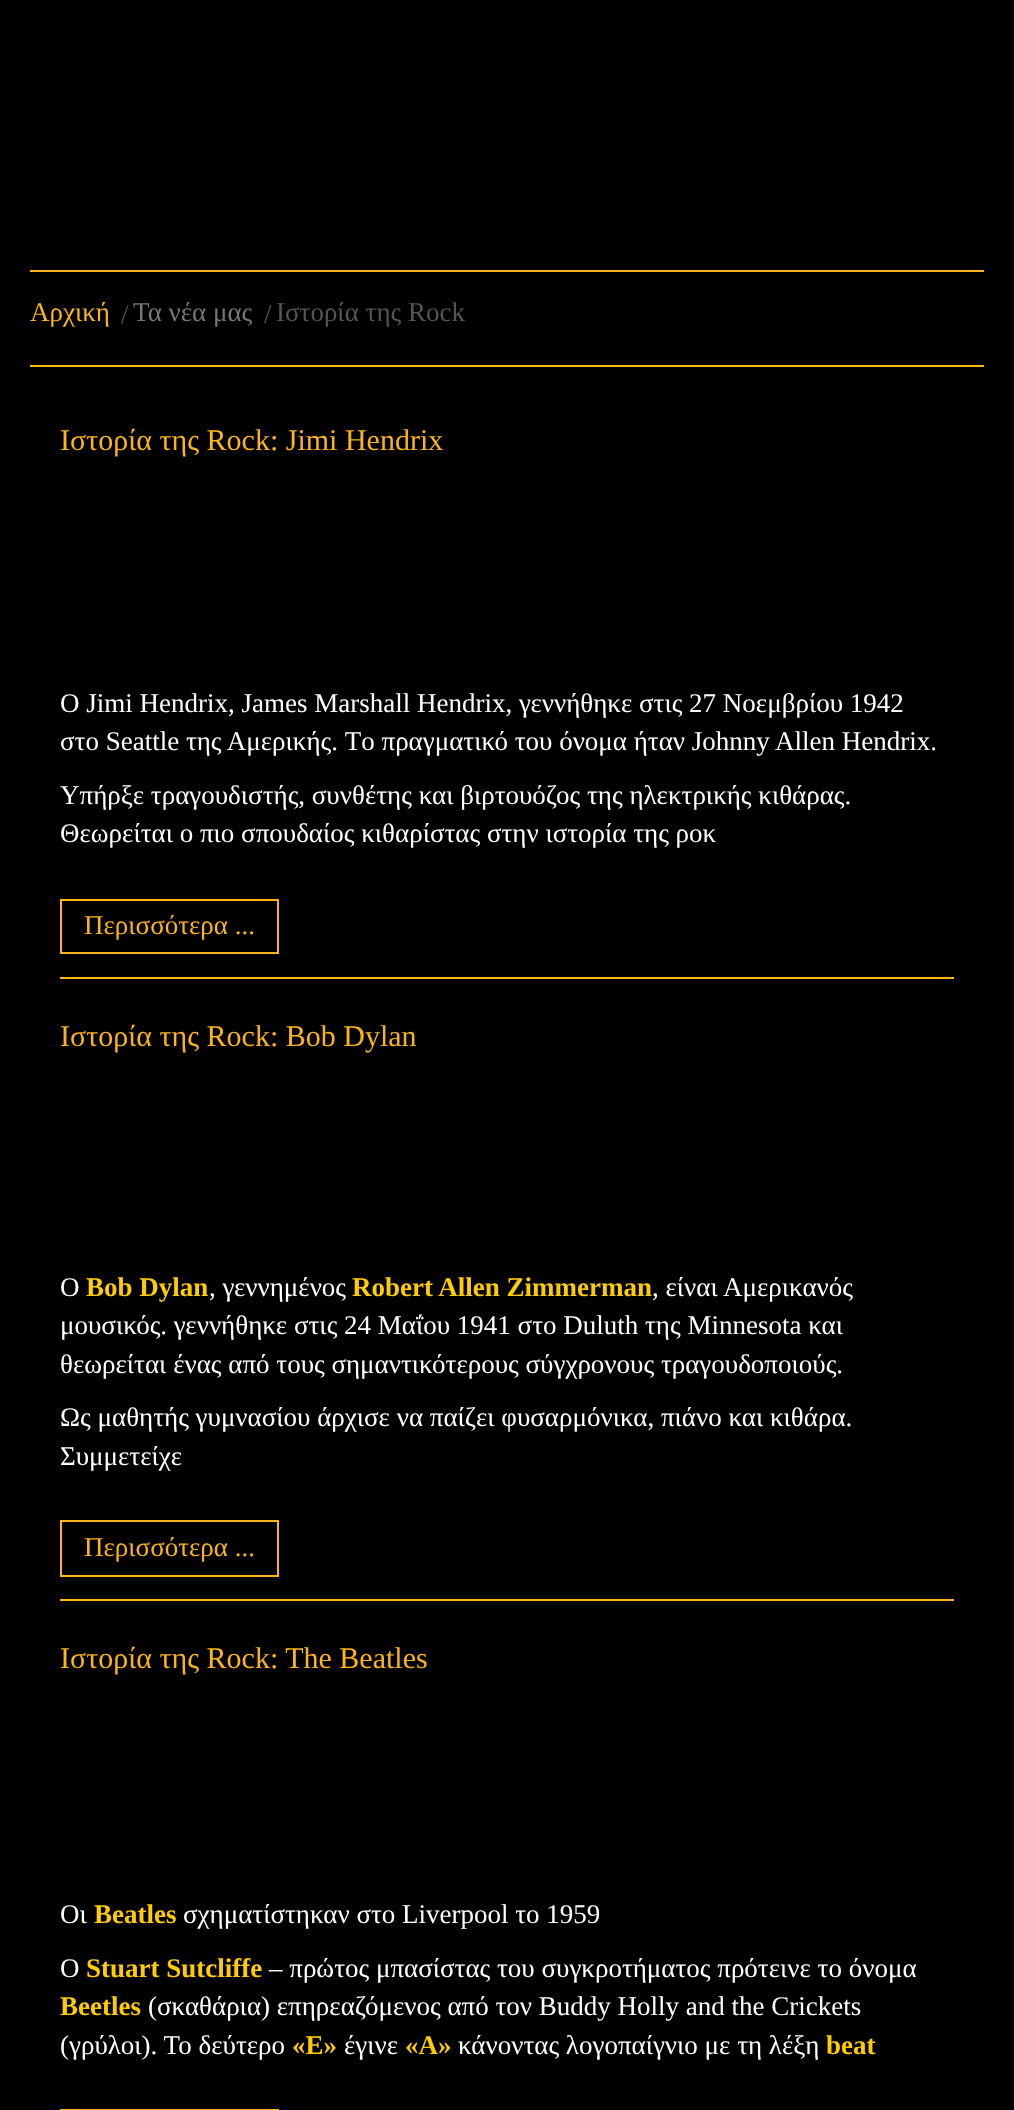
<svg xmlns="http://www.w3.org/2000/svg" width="1014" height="2110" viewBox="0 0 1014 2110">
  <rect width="100%" height="100%" fill="rgb(0,0,0)"/>
  <rect x="30" y="270" width="954" height="2" fill="rgb(253,180,23)"/>
  <text x="30" y="321" font-family="Liberation Serif" font-size="27" fill="rgb(253,180,23)">Αρχική</text>
  <text x="121" y="323" font-family="Liberation Serif" font-size="27" fill="rgb(85,85,85)">/</text>
  <text x="133" y="321" font-family="Liberation Serif" font-size="27" fill="rgb(119,119,119)">Τα νέα μας</text>
  <g font-family="Liberation Serif" font-size="27" fill="rgb(85,85,85)">
    <text x="264" y="323">/</text>
    <text x="276" y="321">Ιστορία της Rock</text>
  </g>
  <rect x="30" y="365" width="954" height="2" fill="rgb(253,180,23)"/>
  <text x="60" y="450" font-family="Liberation Serif" font-size="30" fill="rgb(253,180,23)">Ιστορία της Rock: Jimi Hendrix</text>
  <g font-family="Liberation Serif" font-size="27" fill="rgb(255,255,255)">
    <text>
      <tspan x="60" y="712">O Jimi Hendrix, James Marshall Hendrix, γεννήθηκε στις 27 Νοεμβρίου 1942</tspan>
      <tspan x="60" y="750">στο Seattle της Αμερικής. Tο πραγματικό του όνομα ήταν Johnny Allen Hendrix.</tspan>
    </text>
    <text>
      <tspan x="60" y="804">Yπήρξε τραγουδιστής, συνθέτης και βιρτουόζος της ηλεκτρικής κιθάρας.</tspan>
      <tspan x="60" y="842">Θεωρείται ο πιο σπουδαίος κιθαρίστας στην ιστορία της ροκ</tspan>
    </text>
  </g>
  <rect x="61" y="900" width="217" height="53" fill="none" stroke="rgb(253,180,23)" stroke-width="2"/>
  <text x="84" y="934" font-family="Liberation Serif" font-size="27" fill="rgb(253,180,23)">Περισσότερα ...</text>
  <rect x="60" y="977" width="894" height="2" fill="rgb(253,180,23)"/>
  <text x="60" y="1046" font-family="Liberation Serif" font-size="30" fill="rgb(253,180,23)">Ιστορία της Rock: Bob Dylan</text>
  <text x="60" y="1296" font-family="Liberation Serif" font-size="27" fill="rgb(255,255,255)">Ο</text>
  <text x="86" y="1296" font-family="Liberation Serif" font-size="27" font-weight="bold" fill="rgb(255,204,0)">Bob Dylan</text>
  <text x="209" y="1296" font-family="Liberation Serif" font-size="27" fill="rgb(255,255,255)">, γεννημένος</text>
  <text x="352" y="1296" font-family="Liberation Serif" font-size="27" font-weight="bold" fill="rgb(255,204,0)">Robert Allen Zimmerman</text>
  <g font-family="Liberation Serif" font-size="27" fill="rgb(255,255,255)">
    <text x="652" y="1296">, είναι Αμερικανός</text>
    <text>
      <tspan x="60" y="1334">μουσικός. γεννήθηκε στις 24 Μαΐου 1941 στο Duluth της Minnesota και</tspan>
      <tspan x="60" y="1373">θεωρείται ένας από τους σημαντικότερους σύγχρονους τραγουδοποιούς.</tspan>
      <tspan x="60" y="1426">Ως μαθητής γυμνασίου άρχισε να παίζει φυσαρμόνικα, πιάνο και κιθάρα.</tspan>
      <tspan x="60" y="1465">Συμμετείχε</tspan>
    </text>
  </g>
  <rect x="61" y="1521" width="217" height="55" fill="none" stroke="rgb(253,180,23)" stroke-width="2"/>
  <text x="84" y="1556" font-family="Liberation Serif" font-size="27" fill="rgb(253,180,23)">Περισσότερα ...</text>
  <rect x="60" y="1599" width="894" height="2" fill="rgb(253,180,23)"/>
  <text x="60" y="1668" font-family="Liberation Serif" font-size="30" fill="rgb(253,180,23)">Ιστορία της Rock: The Beatles</text>
  <text x="60" y="1923" font-family="Liberation Serif" font-size="27" fill="rgb(255,255,255)">Οι</text>
  <text x="94" y="1923" font-family="Liberation Serif" font-size="27" font-weight="bold" fill="rgb(255,204,0)">Beatles</text>
  <g font-family="Liberation Serif" font-size="27" fill="rgb(255,255,255)">
    <text x="183" y="1923">σχηματίστηκαν στο Liverpool το 1959</text>
    <text x="60" y="1977">Ο</text>
  </g>
  <text x="86" y="1977" font-family="Liberation Serif" font-size="27" font-weight="bold" fill="rgb(255,204,0)">Stuart Sutcliffe</text>
  <text x="269" y="1977" font-family="Liberation Serif" font-size="27" fill="rgb(255,255,255)">– πρώτος μπασίστας του συγκροτήματος πρότεινε το όνομα</text>
  <text x="60" y="2015" font-family="Liberation Serif" font-size="27" font-weight="bold" fill="rgb(255,204,0)">Beetles</text>
  <g font-family="Liberation Serif" font-size="27" fill="rgb(255,255,255)">
    <text x="148" y="2015">(σκαθάρια) επηρεαζόμενος από τον Buddy Holly and the Crickets</text>
    <text x="60" y="2054">(γρύλοι). Το δεύτερο</text>
  </g>
  <text x="292" y="2054" font-family="Liberation Serif" font-size="27" font-weight="bold" fill="rgb(255,204,0)">«Ε»</text>
  <text x="344" y="2054" font-family="Liberation Serif" font-size="27" fill="rgb(255,255,255)">έγινε</text>
  <text x="405" y="2054" font-family="Liberation Serif" font-size="27" font-weight="bold" fill="rgb(255,204,0)">«Α»</text>
  <text x="458" y="2054" font-family="Liberation Serif" font-size="27" fill="rgb(255,255,255)">κάνοντας λογοπαίγνιο με τη λέξη</text>
  <text x="826" y="2054" font-family="Liberation Serif" font-size="27" font-weight="bold" fill="rgb(255,204,0)">beat</text>
  <rect x="61" y="2110" width="217" height="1" fill="none" stroke="rgb(253,180,23)" stroke-width="2"/>
</svg>
